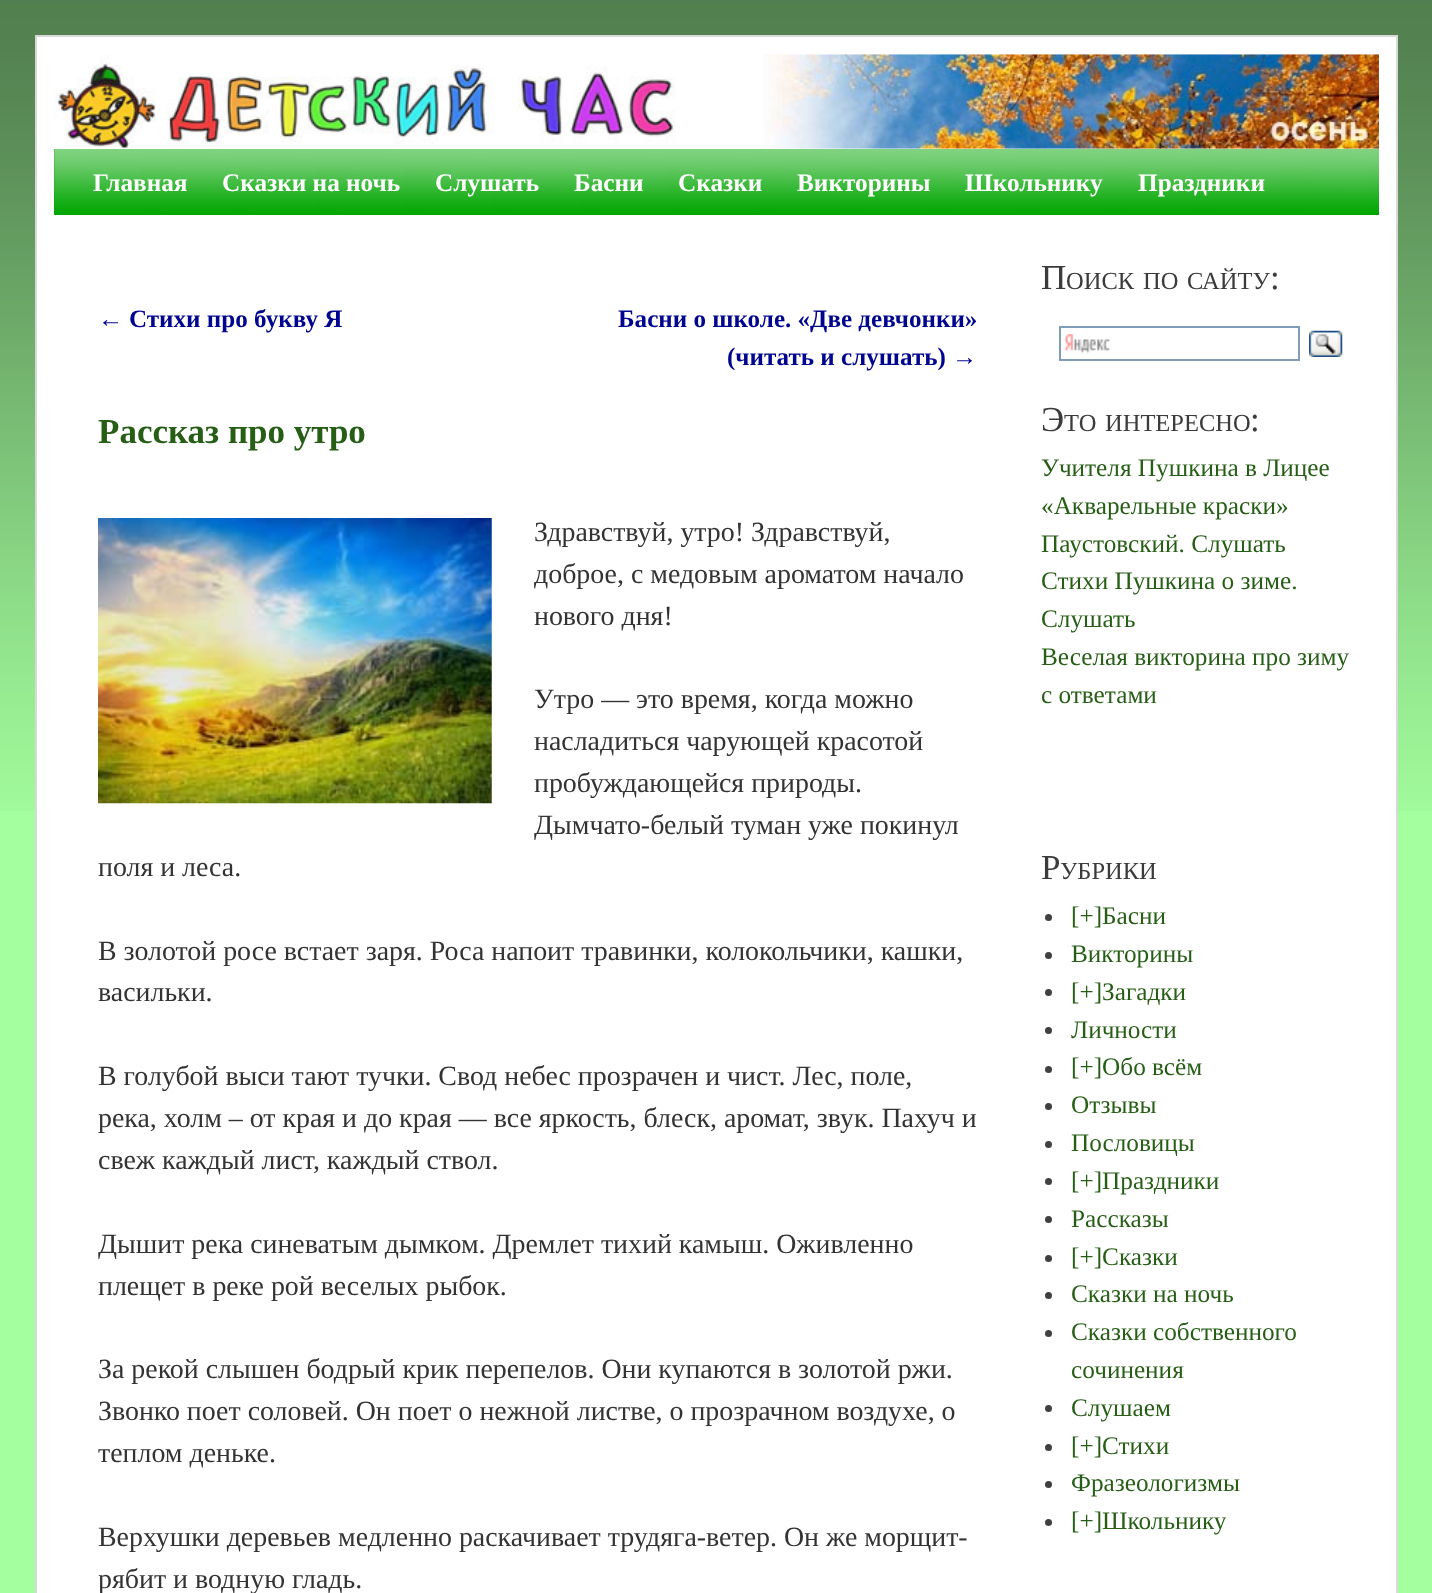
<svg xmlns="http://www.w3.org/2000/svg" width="1432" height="1593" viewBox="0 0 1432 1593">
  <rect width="100%" height="100%" fill="rgb(164,255,158)"/>
  <image x="0" y="0" width="1432" height="811" href="pic1.png"/>
  <rect x="36" y="36" width="1361" height="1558" fill="rgb(255,255,255)" stroke="rgb(216,216,216)" stroke-width="2"/>
  <image x="54" y="55" width="622" height="93" href="pic2.png"/>
  <image x="763" y="54" width="616" height="95" href="pic3.png"/>
  <rect x="54" y="149" width="1325" height="66" fill="rgb(0,166,0)"/>
  <image x="54" y="149" width="1325" height="64" href="pic4.png"/>
  <g font-family="Liberation Serif" font-size="25.25" font-weight="bold" fill="rgb(255,255,255)">
    <text x="93" y="191">Главная</text>
    <text x="222" y="191">Сказки на ночь</text>
    <text x="435" y="191">Слушать</text>
    <text x="574" y="191">Басни</text>
    <text x="678" y="191">Сказки</text>
    <text x="797" y="191">Викторины</text>
    <text x="965" y="191">Школьнику</text>
    <text x="1138" y="191">Праздники</text>
  </g>
  <text x="98" y="327" font-family="Liberation Serif" font-size="25.1" fill="rgb(0,5,143)">←</text>
  <g font-family="Liberation Serif" font-size="25.1" font-weight="bold" fill="rgb(0,5,143)">
    <text x="129" y="327">Стихи про букву Я</text>
    <text x="618" y="327">Басни о школе. «Две девчонки»</text>
    <text x="727" y="365">(читать и слушать)</text>
  </g>
  <text x="952" y="365" font-family="Liberation Serif" font-size="25.1" fill="rgb(0,5,143)">→</text>
  <text x="98" y="443" font-family="Liberation Serif" font-size="35" font-weight="bold" fill="rgb(38,94,21)">Рассказ про утро</text>
  <image x="98" y="518" width="394" height="286" href="pic5.png"/>
  <g font-family="Liberation Serif" font-size="27.9" fill="rgb(51,51,51)">
    <text>
      <tspan x="534" y="541">Здравствуй, утро! Здравствуй,</tspan>
      <tspan x="534" y="583">доброе, с медовым ароматом начало</tspan>
      <tspan x="534" y="625">нового дня!</tspan>
    </text>
    <text>
      <tspan x="534" y="708">Утро — это время, когда можно</tspan>
      <tspan x="534" y="750">насладиться чарующей красотой</tspan>
      <tspan x="534" y="792">пробуждающейся природы.</tspan>
      <tspan x="534" y="834">Дымчато-белый туман уже покинул</tspan>
    </text>
    <text x="98" y="876">поля и леса.</text>
    <text>
      <tspan x="98" y="960">В золотой росе встает заря. Роса напоит травинки, колокольчики, кашки,</tspan>
      <tspan x="98" y="1001">васильки.</tspan>
    </text>
    <text>
      <tspan x="98" y="1085">В голубой выси тают тучки. Свод небес прозрачен и чист. Лес, поле,</tspan>
      <tspan x="98" y="1127">река, холм – от края и до края — все яркость, блеск, аромат, звук. Пахуч и</tspan>
      <tspan x="98" y="1169">свеж каждый лист, каждый ствол.</tspan>
    </text>
    <text>
      <tspan x="98" y="1253">Дышит река синеватым дымком. Дремлет тихий камыш. Оживленно</tspan>
      <tspan x="98" y="1295">плещет в реке рой веселых рыбок.</tspan>
    </text>
    <text>
      <tspan x="98" y="1378">За рекой слышен бодрый крик перепелов. Они купаются в золотой ржи.</tspan>
      <tspan x="98" y="1420">Звонко поет соловей. Он поет о нежной листве, о прозрачном воздухе, о</tspan>
      <tspan x="98" y="1462">теплом деньке.</tspan>
    </text>
    <text>
      <tspan x="98" y="1546">Верхушки деревьев медленно раскачивает трудяга-ветер. Он же морщит-</tspan>
      <tspan x="98" y="1588">рябит и водную гладь.</tspan>
    </text>
  </g>
  <text x="1041" y="289" font-family="Liberation Serif" font-size="35" fill="rgb(59,59,59)">П</text>
  <g font-family="Liberation Serif" font-size="24.5" fill="rgb(59,59,59)">
    <text x="1066" y="289">ОИСК</text>
    <text x="1143" y="289">ПО</text>
    <text x="1187" y="289">САЙТУ</text>
  </g>
  <text x="1270" y="289" font-family="Liberation Serif" font-size="35" fill="rgb(59,59,59)">:</text>
  <image x="1064" y="334" width="46" height="20" href="pic6.png"/>
  <rect x="1060" y="327" width="239" height="33" fill="none" stroke="rgb(127,157,185)" stroke-width="2"/>
  <image x="1309" y="330" width="34" height="27" href="pic7.png"/>
  <text x="1041" y="431" font-family="Liberation Serif" font-size="35" fill="rgb(59,59,59)">Э</text>
  <g font-family="Liberation Serif" font-size="24.5" fill="rgb(59,59,59)">
    <text x="1064" y="431">ТО</text>
    <text x="1105" y="431">ИНТЕРЕСНО</text>
  </g>
  <text x="1250" y="431" font-family="Liberation Serif" font-size="35" fill="rgb(59,59,59)">:</text>
  <g font-family="Liberation Serif" font-size="25.25" fill="rgb(38,94,21)">
    <text>
      <tspan x="1041" y="476">Учителя Пушкина в Лицее</tspan>
      <tspan x="1041" y="514">«Акварельные краски»</tspan>
      <tspan x="1041" y="552">Паустовский. Слушать</tspan>
      <tspan x="1041" y="589">Стихи Пушкина о зиме.</tspan>
      <tspan x="1041" y="627">Слушать</tspan>
      <tspan x="1041" y="665">Веселая викторина про зиму</tspan>
      <tspan x="1041" y="703">с ответами</tspan>
    </text>
  </g>
  <text x="1041" y="879" font-family="Liberation Serif" font-size="35" fill="rgb(59,59,59)">Р</text>
  <text x="1060" y="879" font-family="Liberation Serif" font-size="24.5" fill="rgb(59,59,59)">УБРИКИ</text>
  <circle cx="1048.5" cy="917.5" r="3.5" fill="rgb(64,64,64)"/>
  <text x="1071" y="924" font-family="Liberation Serif" font-size="25.25" fill="rgb(38,94,21)">[+]Басни</text>
  <circle cx="1048.5" cy="955.5" r="3.5" fill="rgb(64,64,64)"/>
  <text x="1071" y="962" font-family="Liberation Serif" font-size="25.25" fill="rgb(38,94,21)">Викторины</text>
  <circle cx="1048.5" cy="992.5" r="3.5" fill="rgb(64,64,64)"/>
  <text x="1071" y="1000" font-family="Liberation Serif" font-size="25.25" fill="rgb(38,94,21)">[+]Загадки</text>
  <circle cx="1048.5" cy="1030.5" r="3.5" fill="rgb(64,64,64)"/>
  <text x="1071" y="1038" font-family="Liberation Serif" font-size="25.25" fill="rgb(38,94,21)">Личности</text>
  <circle cx="1048.5" cy="1069.5" r="3.5" fill="rgb(64,64,64)"/>
  <text x="1071" y="1075" font-family="Liberation Serif" font-size="25.25" fill="rgb(38,94,21)">[+]Обо всём</text>
  <circle cx="1048.5" cy="1106.5" r="3.5" fill="rgb(64,64,64)"/>
  <text x="1071" y="1113" font-family="Liberation Serif" font-size="25.25" fill="rgb(38,94,21)">Отзывы</text>
  <circle cx="1048.5" cy="1144.5" r="3.5" fill="rgb(64,64,64)"/>
  <text x="1071" y="1151" font-family="Liberation Serif" font-size="25.25" fill="rgb(38,94,21)">Пословицы</text>
  <circle cx="1048.5" cy="1181.5" r="3.5" fill="rgb(64,64,64)"/>
  <text x="1071" y="1189" font-family="Liberation Serif" font-size="25.25" fill="rgb(38,94,21)">[+]Праздники</text>
  <circle cx="1048.5" cy="1219.5" r="3.5" fill="rgb(64,64,64)"/>
  <text x="1071" y="1227" font-family="Liberation Serif" font-size="25.25" fill="rgb(38,94,21)">Рассказы</text>
  <circle cx="1048.5" cy="1258.5" r="3.5" fill="rgb(64,64,64)"/>
  <text x="1071" y="1265" font-family="Liberation Serif" font-size="25.25" fill="rgb(38,94,21)">[+]Сказки</text>
  <circle cx="1048.5" cy="1295.5" r="3.5" fill="rgb(64,64,64)"/>
  <text x="1071" y="1302" font-family="Liberation Serif" font-size="25.25" fill="rgb(38,94,21)">Сказки на ночь</text>
  <circle cx="1048.5" cy="1333.5" r="3.5" fill="rgb(64,64,64)"/>
  <g font-family="Liberation Serif" font-size="25.25" fill="rgb(38,94,21)">
    <text>
      <tspan x="1071" y="1340">Сказки собственного</tspan>
      <tspan x="1071" y="1378">сочинения</tspan>
    </text>
  </g>
  <circle cx="1048.5" cy="1408.5" r="3.5" fill="rgb(64,64,64)"/>
  <text x="1071" y="1416" font-family="Liberation Serif" font-size="25.25" fill="rgb(38,94,21)">Слушаем</text>
  <circle cx="1048.5" cy="1447.5" r="3.5" fill="rgb(64,64,64)"/>
  <text x="1071" y="1454" font-family="Liberation Serif" font-size="25.25" fill="rgb(38,94,21)">[+]Стихи</text>
  <circle cx="1048.5" cy="1484.5" r="3.5" fill="rgb(64,64,64)"/>
  <text x="1071" y="1491" font-family="Liberation Serif" font-size="25.25" fill="rgb(38,94,21)">Фразеологизмы</text>
  <circle cx="1048.5" cy="1522.5" r="3.5" fill="rgb(64,64,64)"/>
  <text x="1071" y="1529" font-family="Liberation Serif" font-size="25.25" fill="rgb(38,94,21)">[+]Школьнику</text>
</svg>
